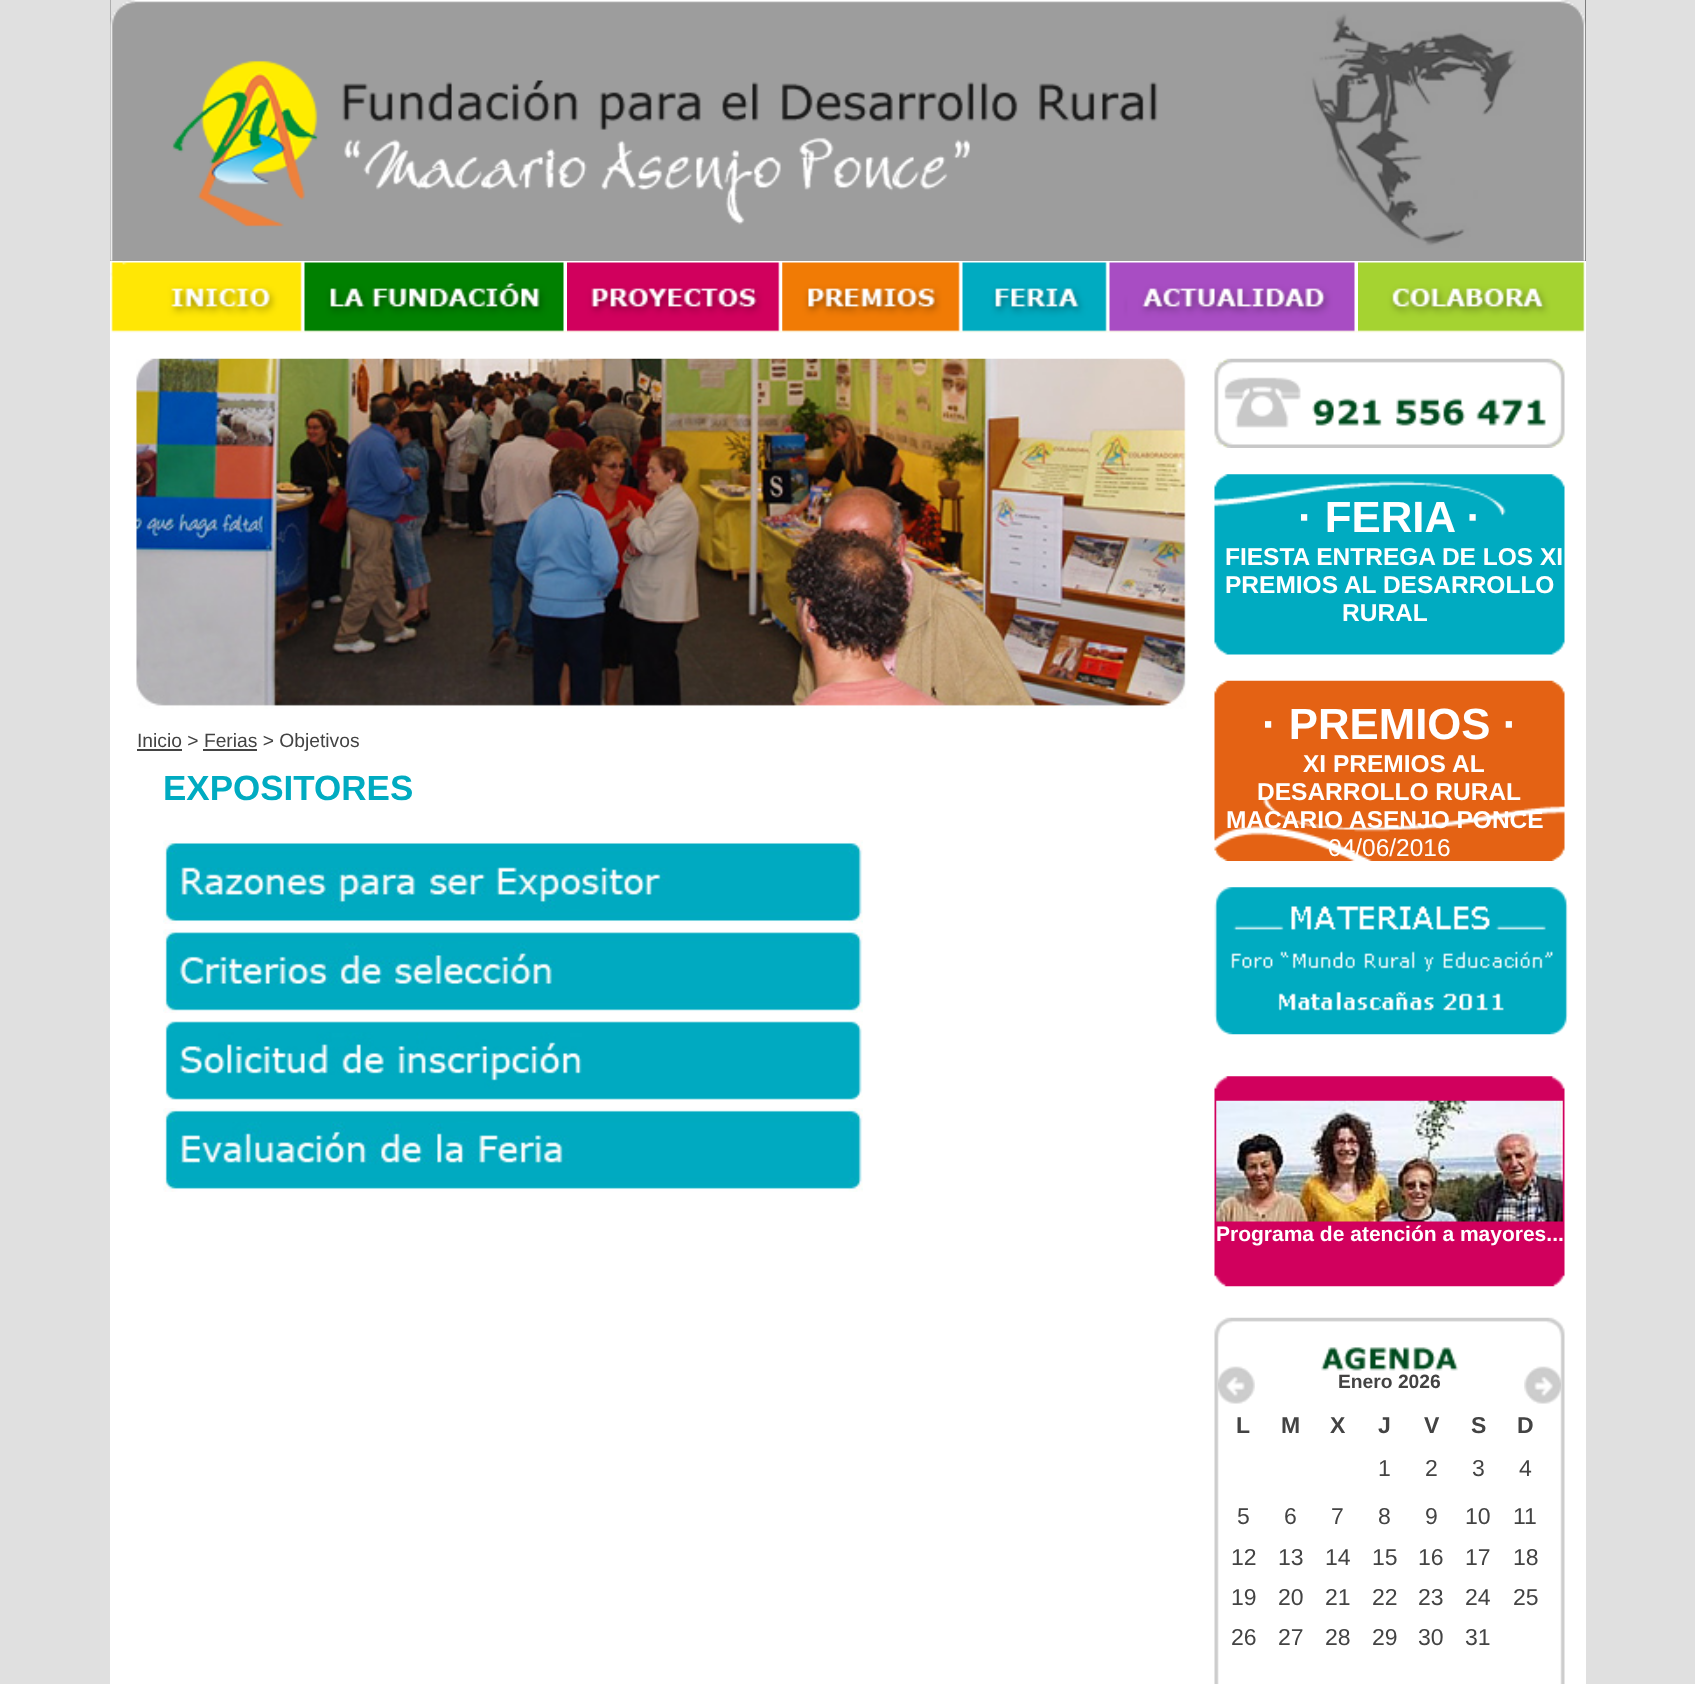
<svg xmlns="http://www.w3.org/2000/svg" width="1695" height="1684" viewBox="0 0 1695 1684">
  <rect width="100%" height="100%" fill="rgb(224,224,224)"/>
  <rect x="110" y="333" width="1476" height="1351" fill="rgb(255,255,255)"/>
  <rect x="110" y="0" width="1476" height="261" fill="rgb(26,26,26)"/>
  <image x="110" y="0" width="1476" height="261" href="pic1.png"/>
  <rect x="110" y="261" width="195" height="72" fill="rgb(255,255,255)"/>
  <image x="110" y="260" width="195" height="73" href="pic2.png"/>
  <rect x="305" y="332" width="477" height="1" fill="rgb(255,255,255)"/>
  <image x="304" y="260" width="263" height="73" href="pic3.png"/>
  <image x="567" y="260" width="216" height="73" href="pic4.png"/>
  <rect x="782" y="261" width="328" height="72" fill="rgb(255,255,255)"/>
  <image x="782" y="260" width="181" height="73" href="pic5.png"/>
  <image x="962" y="260" width="148" height="73" href="pic6.png"/>
  <rect x="1110" y="332" width="248" height="1" fill="rgb(255,255,255)"/>
  <image x="1109" y="260" width="249" height="73" href="pic7.png"/>
  <rect x="1358" y="261" width="228" height="72" fill="rgb(255,255,255)"/>
  <image x="1358" y="260" width="228" height="73" href="pic8.png"/>
  <image x="136" y="358" width="1051" height="351" href="pic9.png"/>
  <rect x="137" y="749" width="45" height="2" fill="rgb(67,67,67)"/>
  <text x="137" y="747" font-family="Liberation Sans" font-size="19.25" fill="rgb(67,67,67)">Inicio &gt; Ferias &gt; Objetivos</text>
  <rect x="203" y="749" width="54" height="2" fill="rgb(67,67,67)"/>
  <text x="163" y="800" font-family="Liberation Sans" font-size="35" font-weight="bold" fill="rgb(0,171,193)">EXPOSITORES</text>
  <image x="163" y="840" width="700" height="84" href="pic10.png"/>
  <image x="163" y="929" width="700" height="84" href="pic11.png"/>
  <image x="165" y="1021" width="698" height="79" href="pic12.png"/>
  <image x="163" y="1108" width="700" height="84" href="pic13.png"/>
  <image x="1214" y="358" width="351" height="90" href="pic14.png"/>
  <image x="1214" y="474" width="351" height="181" href="pic15.png"/>
  <text x="1298" y="532" font-family="Liberation Sans" font-size="43.75" font-weight="bold" fill="rgb(255,255,255)">· FERIA ·</text>
  <g font-family="Liberation Sans" font-size="24.5" font-weight="bold" fill="rgb(255,255,255)">
    <text>
      <tspan x="1225" y="565">FIESTA ENTREGA DE LOS XI</tspan>
      <tspan x="1225" y="593">PREMIOS AL DESARROLLO</tspan>
    </text>
    <text x="1342" y="621">RURAL</text>
  </g>
  <image x="1214" y="680" width="351" height="181" href="pic16.png"/>
  <text x="1262" y="739" font-family="Liberation Sans" font-size="43.75" font-weight="bold" fill="rgb(255,255,255)">· PREMIOS ·</text>
  <g font-family="Liberation Sans" font-size="24.5" font-weight="bold" fill="rgb(255,255,255)">
    <text x="1303" y="772">XI PREMIOS</text>
    <text x="1452" y="772">AL</text>
    <text x="1257" y="800">DESARROLLO RURAL</text>
    <text x="1226" y="828">MACARIO ASENJO PONCE</text>
  </g>
  <text x="1328" y="856" font-family="Liberation Sans" font-size="24.5" fill="rgb(255,255,255)">04/06/2016</text>
  <image x="1214" y="887" width="354" height="148" href="pic17.png"/>
  <image x="1214" y="1076" width="351" height="211" href="pic18.png"/>
  <image x="1216" y="1100" width="347" height="122" href="pic19.png"/>
  <text x="1216" y="1241" font-family="Liberation Sans" font-size="21" font-weight="bold" fill="rgb(255,255,255)">Programa de atención a mayores...</text>
  <image x="1214" y="1317" width="351" height="367" href="pic20.png"/>
  <image x="1218" y="1366" width="37" height="38" href="pic21.png"/>
  <text x="1338" y="1388" font-family="Liberation Sans" font-size="19.25" font-weight="bold" fill="rgb(67,67,67)">Enero 2026</text>
  <image x="1524" y="1366" width="37" height="38" href="pic22.png"/>
  <g font-family="Liberation Sans" font-size="23" font-weight="bold" fill="rgb(67,67,67)">
    <text x="1236" y="1433">L</text>
    <text x="1281" y="1433">M</text>
    <text x="1330" y="1433">X</text>
    <text x="1378" y="1433">J</text>
    <text x="1424" y="1433">V</text>
    <text x="1471" y="1433">S</text>
    <text x="1517" y="1433">D</text>
  </g>
  <g font-family="Liberation Sans" font-size="23" fill="rgb(67,67,67)">
    <text x="1378" y="1476">1</text>
    <text x="1425" y="1476">2</text>
    <text x="1472" y="1476">3</text>
    <text x="1519" y="1476">4</text>
    <text x="1237" y="1524">5</text>
    <text x="1284" y="1524">6</text>
    <text x="1331" y="1524">7</text>
    <text x="1378" y="1524">8</text>
    <text x="1425" y="1524">9</text>
    <text x="1465" y="1524">10</text>
    <text x="1513" y="1524">11</text>
    <text x="1231" y="1565">12</text>
    <text x="1278" y="1565">13</text>
    <text x="1325" y="1565">14</text>
    <text x="1372" y="1565">15</text>
    <text x="1418" y="1565">16</text>
    <text x="1465" y="1565">17</text>
    <text x="1513" y="1565">18</text>
    <text x="1231" y="1605">19</text>
    <text x="1278" y="1605">20</text>
    <text x="1325" y="1605">21</text>
    <text x="1372" y="1605">22</text>
    <text x="1418" y="1605">23</text>
    <text x="1465" y="1605">24</text>
    <text x="1513" y="1605">25</text>
    <text x="1231" y="1645">26</text>
    <text x="1278" y="1645">27</text>
    <text x="1325" y="1645">28</text>
    <text x="1372" y="1645">29</text>
    <text x="1418" y="1645">30</text>
    <text x="1465" y="1645">31</text>
  </g>
</svg>
